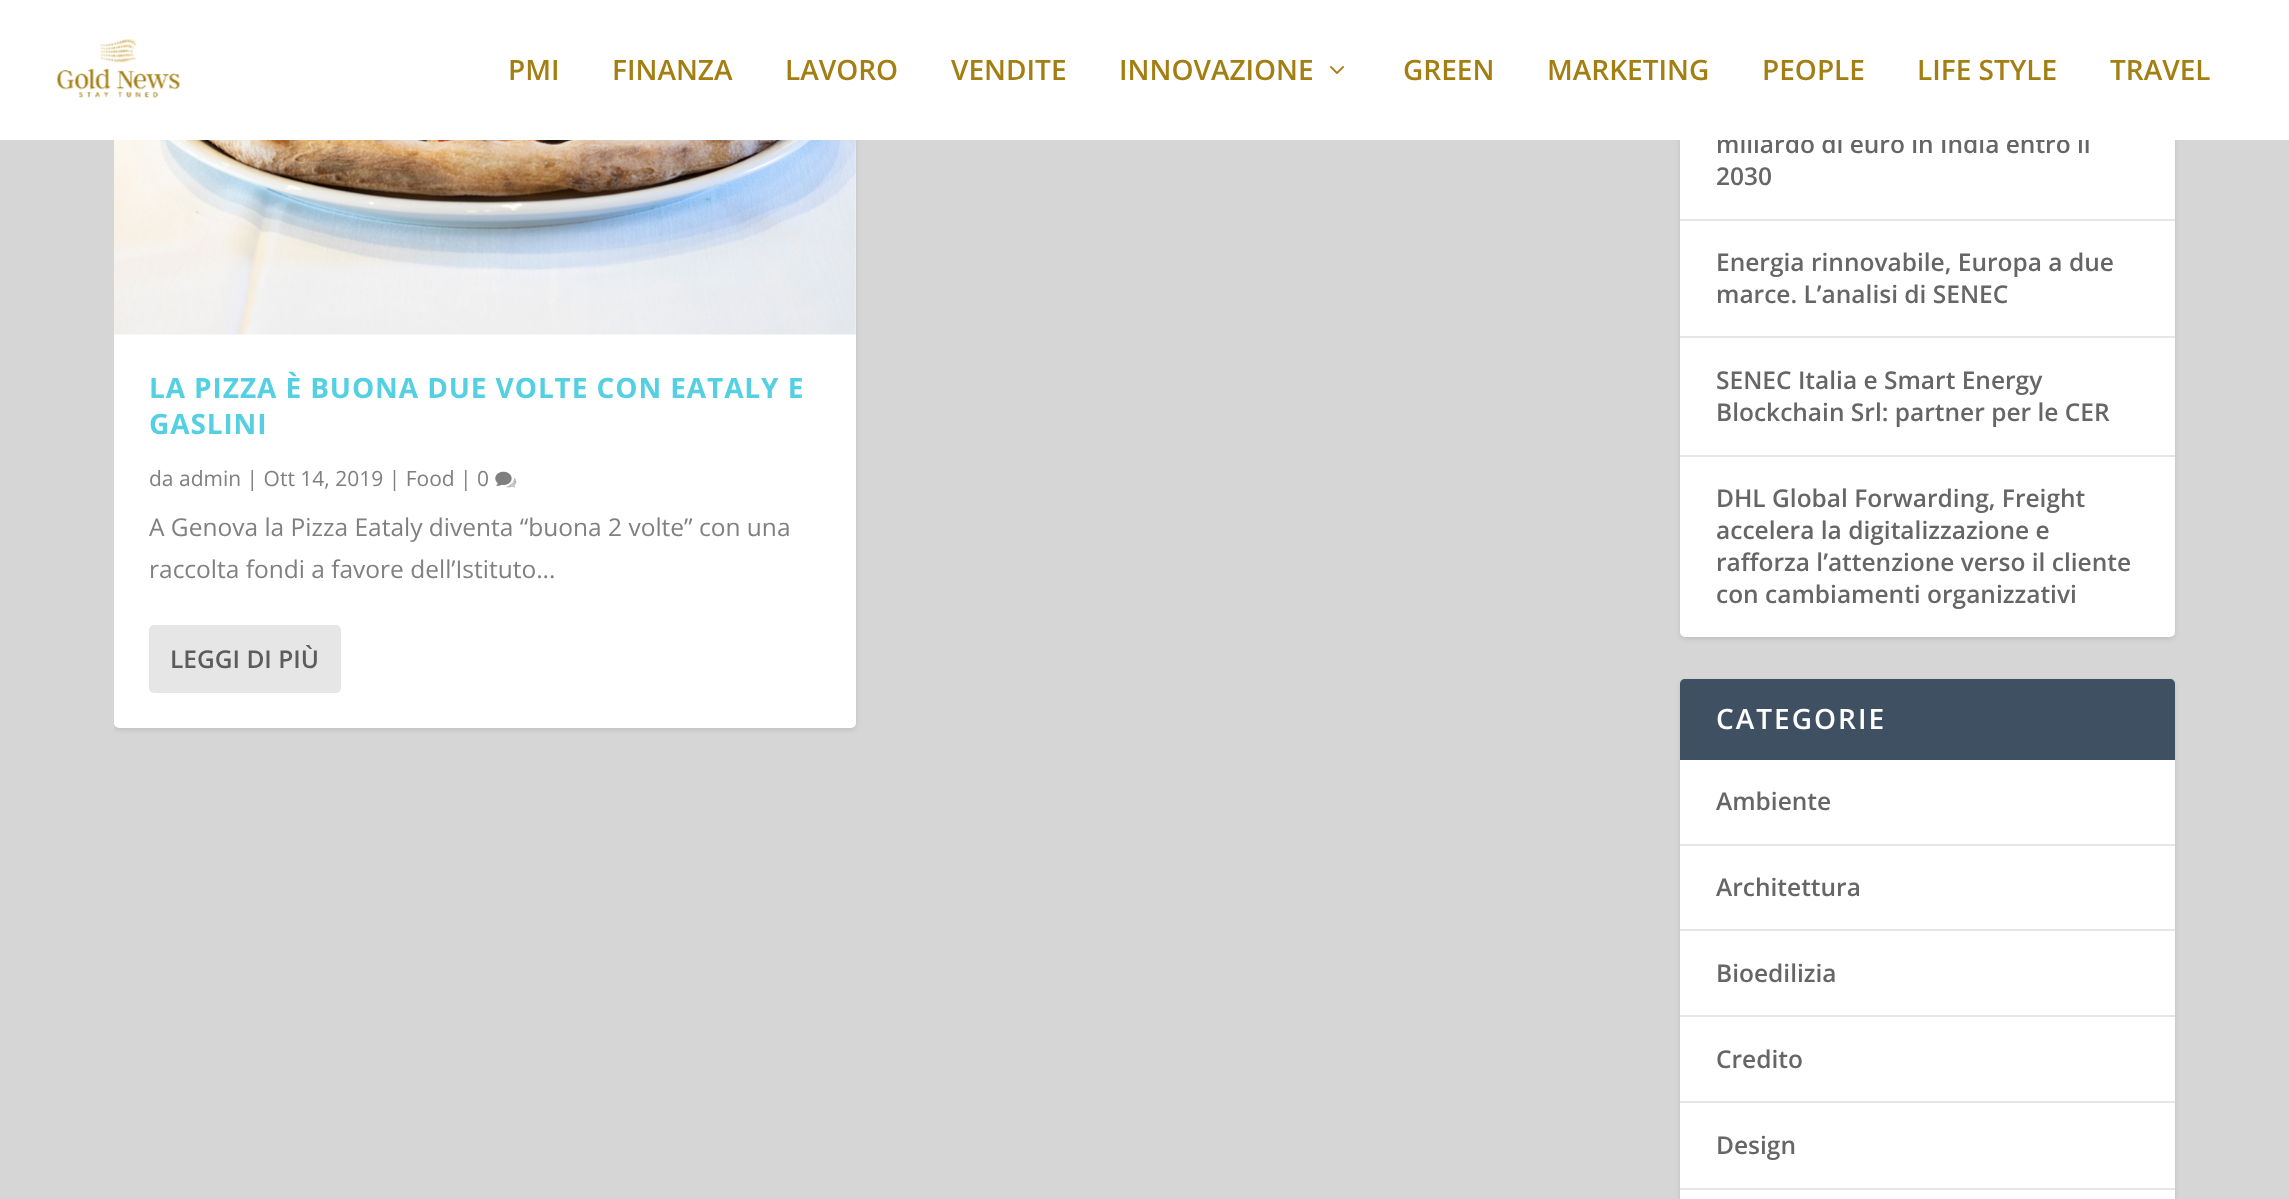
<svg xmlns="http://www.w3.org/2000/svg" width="2289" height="1199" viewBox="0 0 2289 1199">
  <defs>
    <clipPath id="clip1"><rect x="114" y="-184" width="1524" height="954" rx="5"/></clipPath>
  </defs>
  <rect width="100%" height="100%" fill="rgb(214,214,214)"/>
  <g clip-path="url(#clip1)">
    <rect x="114" y="-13" width="742" height="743" rx="5" fill="rgba(0,0,0,0.1)" filter="blur(2.5px)"/>
  </g>
  <rect x="114" y="-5" width="742" height="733" rx="5" fill="rgb(255,255,255)"/>
  <rect x="1680" y="-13" width="495" height="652" rx="5" fill="rgba(0,0,0,0.1)" filter="blur(2.5px)"/>
  <rect x="1680" y="-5" width="495" height="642" rx="5" fill="rgb(255,255,255)"/>
  <text x="1716" y="153" font-family="Open Sans" font-size="24.5" font-weight="600" fill="rgb(102,102,102)">miliardo di euro in India entro il</text>
  <rect x="0" y="0" width="2289" height="140" fill="rgb(255,255,255)"/>
  <image x="57" y="39" width="123" height="59" href="pic1.png"/>
  <g font-family="Open Sans" font-size="28" font-weight="600" fill="rgb(163,126,18)">
    <text x="508" y="80">PMI</text>
    <text x="612" y="80">FINANZA</text>
    <text x="785" y="80">LAVORO</text>
    <text x="951" y="80">VENDITE</text>
    <text x="1119" y="80">INNOVAZIONE</text>
  </g>
  <image x="1330" y="66" width="14" height="8" href="pic2.png"/>
  <g font-family="Open Sans" font-size="28" font-weight="600" fill="rgb(163,126,18)">
    <text x="1403" y="80">GREEN</text>
    <text x="1547" y="80">MARKETING</text>
    <text x="1762" y="80">PEOPLE</text>
    <text x="1917" y="80">LIFE STYLE</text>
    <text x="2110" y="80">TRAVEL</text>
  </g>
  <image x="114" y="140" width="742" height="195" href="pic3.png"/>
  <g font-family="Open Sans" font-size="28" font-weight="bold" letter-spacing="0.9" fill="rgb(84,208,226)">
    <text>
      <tspan x="149" y="398">LA PIZZA È BUONA DUE VOLTE CON EATALY E</tspan>
      <tspan x="149" y="434">GASLINI</tspan>
    </text>
  </g>
  <text x="149" y="486" font-family="Open Sans" font-size="21" fill="rgb(128,128,128)">da admin | Ott 14, 2019 | Food | 0</text>
  <image x="495" y="471" width="22" height="17" href="pic4.png"/>
  <g font-family="Open Sans" font-size="24.5" fill="rgb(128,128,128)">
    <text>
      <tspan x="149" y="536">A Genova la Pizza Eataly diventa “buona 2 volte” con una</tspan>
      <tspan x="149" y="578">raccolta fondi a favore dell’Istituto...</tspan>
    </text>
  </g>
  <rect x="149" y="625" width="192" height="68" rx="5" fill="rgb(230,230,230)"/>
  <text x="170" y="668" font-family="Open Sans" font-size="24.5" font-weight="600" fill="rgb(92,92,92)">LEGGI DI PIÙ</text>
  <rect x="1680" y="219" width="495" height="2" fill="rgb(230,230,230)"/>
  <text x="1716" y="185" font-family="Open Sans" font-size="24.5" font-weight="600" fill="rgb(102,102,102)">2030</text>
  <rect x="1680" y="336" width="495" height="2" fill="rgb(230,230,230)"/>
  <g font-family="Open Sans" font-size="24.5" font-weight="600" fill="rgb(102,102,102)">
    <text>
      <tspan x="1716" y="271">Energia rinnovabile, Europa a due</tspan>
      <tspan x="1716" y="303">marce. L’analisi di SENEC</tspan>
    </text>
  </g>
  <rect x="1680" y="455" width="495" height="2" fill="rgb(230,230,230)"/>
  <g font-family="Open Sans" font-size="24.5" font-weight="600" fill="rgb(102,102,102)">
    <text>
      <tspan x="1716" y="389">SENEC Italia e Smart Energy</tspan>
      <tspan x="1716" y="421">Blockchain Srl: partner per le CER</tspan>
    </text>
    <text>
      <tspan x="1716" y="507">DHL Global Forwarding, Freight</tspan>
      <tspan x="1716" y="539">accelera la digitalizzazione e</tspan>
      <tspan x="1716" y="571">rafforza l’attenzione verso il cliente</tspan>
      <tspan x="1716" y="603">con cambiamenti organizzativi</tspan>
    </text>
  </g>
  <rect x="1680" y="681" width="495" height="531" rx="5" fill="rgba(0,0,0,0.1)" filter="blur(2.5px)"/>
  <rect x="1680" y="679" width="495" height="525" rx="5" fill="rgb(255,255,255)"/>
  <path d="M1685 679H2170C2173 679 2175 681 2175 684V760H1680V684C1680 681 1682 679 1685 679Z" fill="rgb(62,80,98)"/>
  <text x="1716" y="729" font-family="Open Sans" font-size="28" font-weight="600" letter-spacing="2" fill="rgb(255,255,255)">CATEGORIE</text>
  <rect x="1680" y="844" width="495" height="2" fill="rgb(230,230,230)"/>
  <text x="1716" y="810" font-family="Open Sans" font-size="24.5" font-weight="600" fill="rgb(102,102,102)">Ambiente</text>
  <rect x="1680" y="929" width="495" height="2" fill="rgb(230,230,230)"/>
  <text x="1716" y="896" font-family="Open Sans" font-size="24.5" font-weight="600" fill="rgb(102,102,102)">Architettura</text>
  <rect x="1680" y="1015" width="495" height="2" fill="rgb(230,230,230)"/>
  <text x="1716" y="982" font-family="Open Sans" font-size="24.5" font-weight="600" fill="rgb(102,102,102)">Bioedilizia</text>
  <rect x="1680" y="1101" width="495" height="2" fill="rgb(230,230,230)"/>
  <text x="1716" y="1068" font-family="Open Sans" font-size="24.5" font-weight="600" fill="rgb(102,102,102)">Credito</text>
  <rect x="1680" y="1188" width="495" height="2" fill="rgb(230,230,230)"/>
  <text x="1716" y="1154" font-family="Open Sans" font-size="24.5" font-weight="600" fill="rgb(102,102,102)">Design</text>
</svg>
